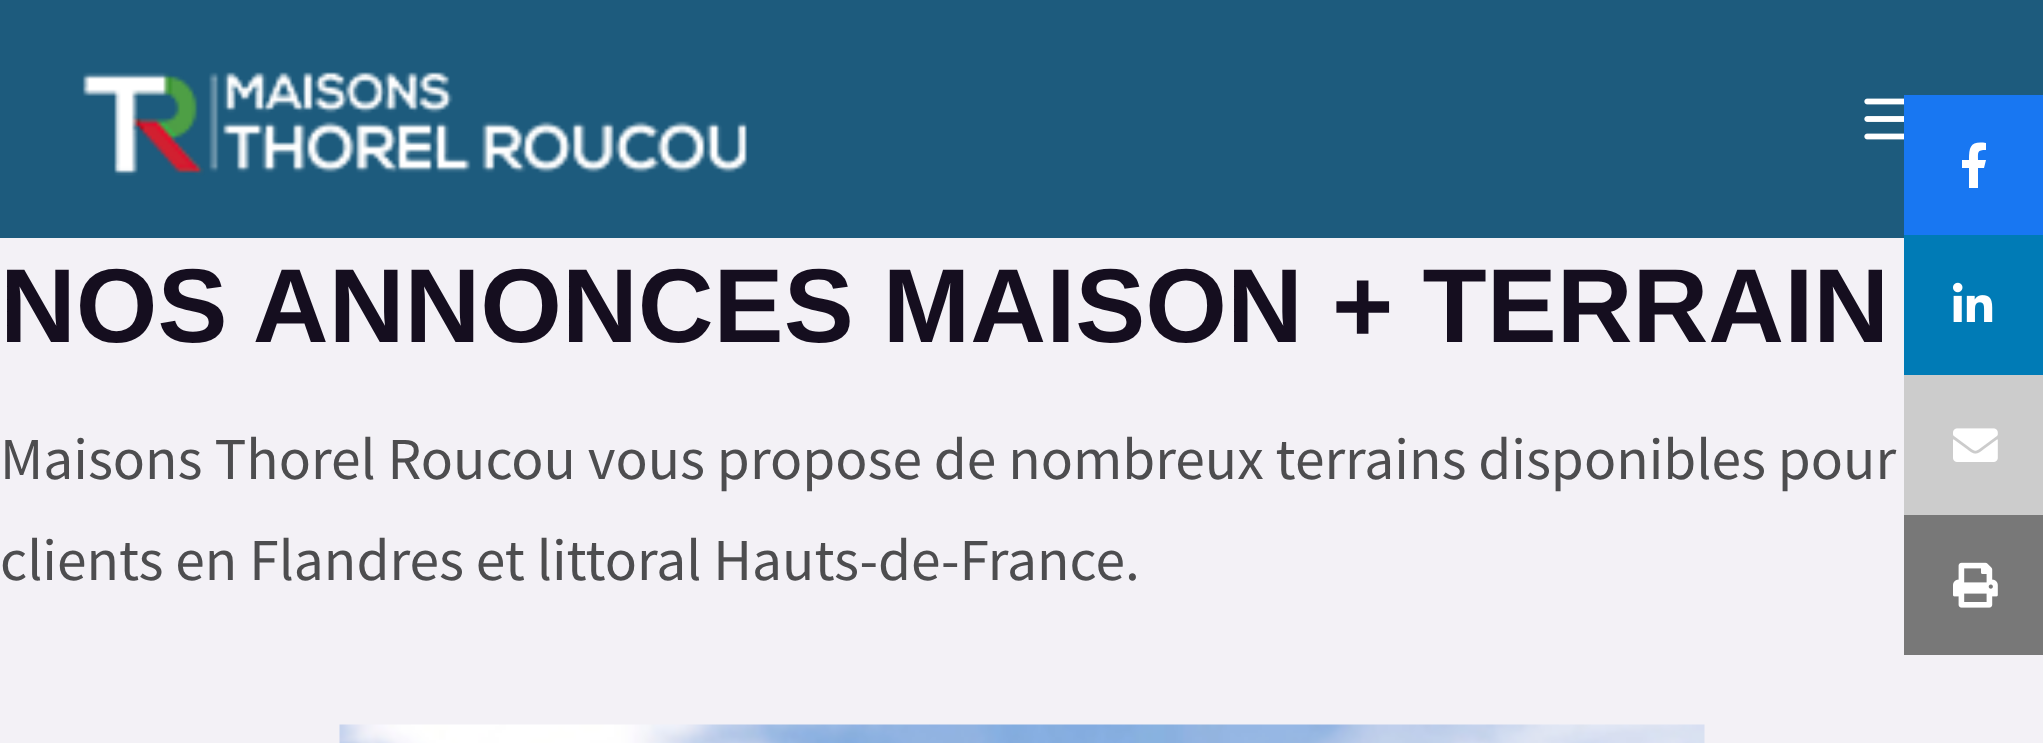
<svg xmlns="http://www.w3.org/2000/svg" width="2043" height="743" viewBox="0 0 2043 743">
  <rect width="100%" height="100%" fill="rgb(243,241,246)"/>
  <rect x="0" y="0" width="2043" height="238" fill="rgb(29,91,125)"/>
  <image x="82" y="72" width="665" height="104" href="pic1.png"/>
  <image x="1864" y="98" width="40" height="42" href="pic2.png"/>
  <text x="0" y="342" font-family="Liberation Sans" font-size="105" font-weight="bold" fill="rgb(21,14,31)">NOS ANNONCES MAISON + TERRAIN</text>
  <g font-family="Source Sans Pro" font-size="59.5" fill="rgb(77,77,79)">
    <text>
      <tspan x="0" y="479">Maisons Thorel Roucou vous propose de nombreux terrains disponibles pour</tspan>
      <tspan x="0" y="580">clients en Flandres et littoral Hauts-de-France.</tspan>
    </text>
  </g>
  <image x="339" y="724" width="1366" height="19" href="pic3.png"/>
  <rect x="1904" y="95" width="139" height="140" fill="rgb(24,119,242)"/>
  <path d="M1984 168H1978V188H1969V168H1962V160H1969C1969 146 1971 141 1986 143V150C1977 150 1978 152 1978 160H1986Z" fill="rgb(255,255,255)"/>
  <rect x="1904" y="235" width="139" height="140" fill="rgb(0,123,182)"/>
  <image x="1953" y="282" width="40" height="40" href="pic4.png"/>
  <rect x="1904" y="375" width="139" height="140" fill="rgb(204,204,204)"/>
  <image x="1953" y="428" width="45" height="34" href="pic5.png"/>
  <rect x="1904" y="515" width="139" height="140" fill="rgb(120,120,120)"/>
  <image x="1953" y="562" width="45" height="46" href="pic6.png"/>
</svg>
